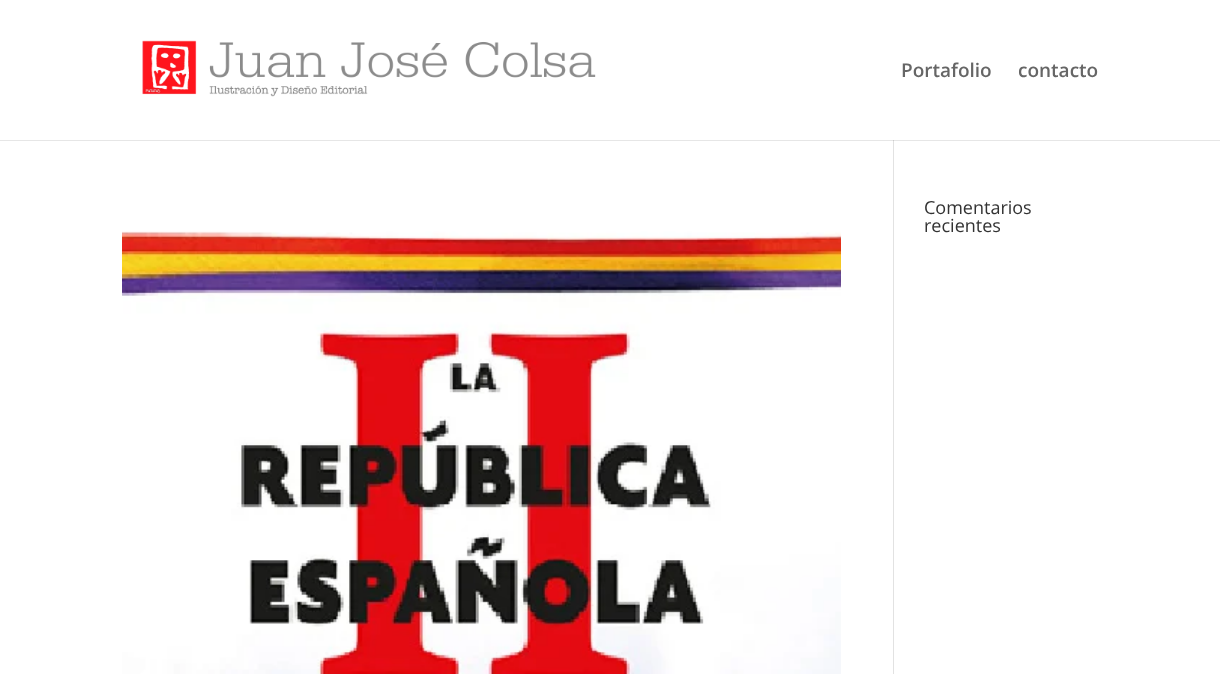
<svg xmlns="http://www.w3.org/2000/svg" width="1220" height="674" viewBox="0 0 1220 674">
  <rect width="100%" height="100%" fill="rgb(255,255,255)"/>
  <rect x="0" y="140" width="1220" height="1" fill="rgb(230,230,230)"/>
  <image x="142" y="40" width="454" height="57" href="pic1.png"/>
  <g font-family="Open Sans" font-size="19" font-weight="600" fill="rgb(102,102,102)">
    <text x="901" y="77">Portafolio</text>
    <text x="1018" y="77">contacto</text>
  </g>
  <rect x="893" y="140" width="1" height="534" fill="rgb(226,226,226)"/>
  <rect x="893" y="140" width="1" height="1" fill="rgb(203,203,203)"/>
  <g font-family="Open Sans" font-size="18" fill="rgb(51,51,51)">
    <text>
      <tspan x="924" y="214">Comentarios</tspan>
      <tspan x="924" y="232">recientes</tspan>
    </text>
  </g>
  <image x="122" y="231" width="719" height="443" href="pic2.png"/>
</svg>
